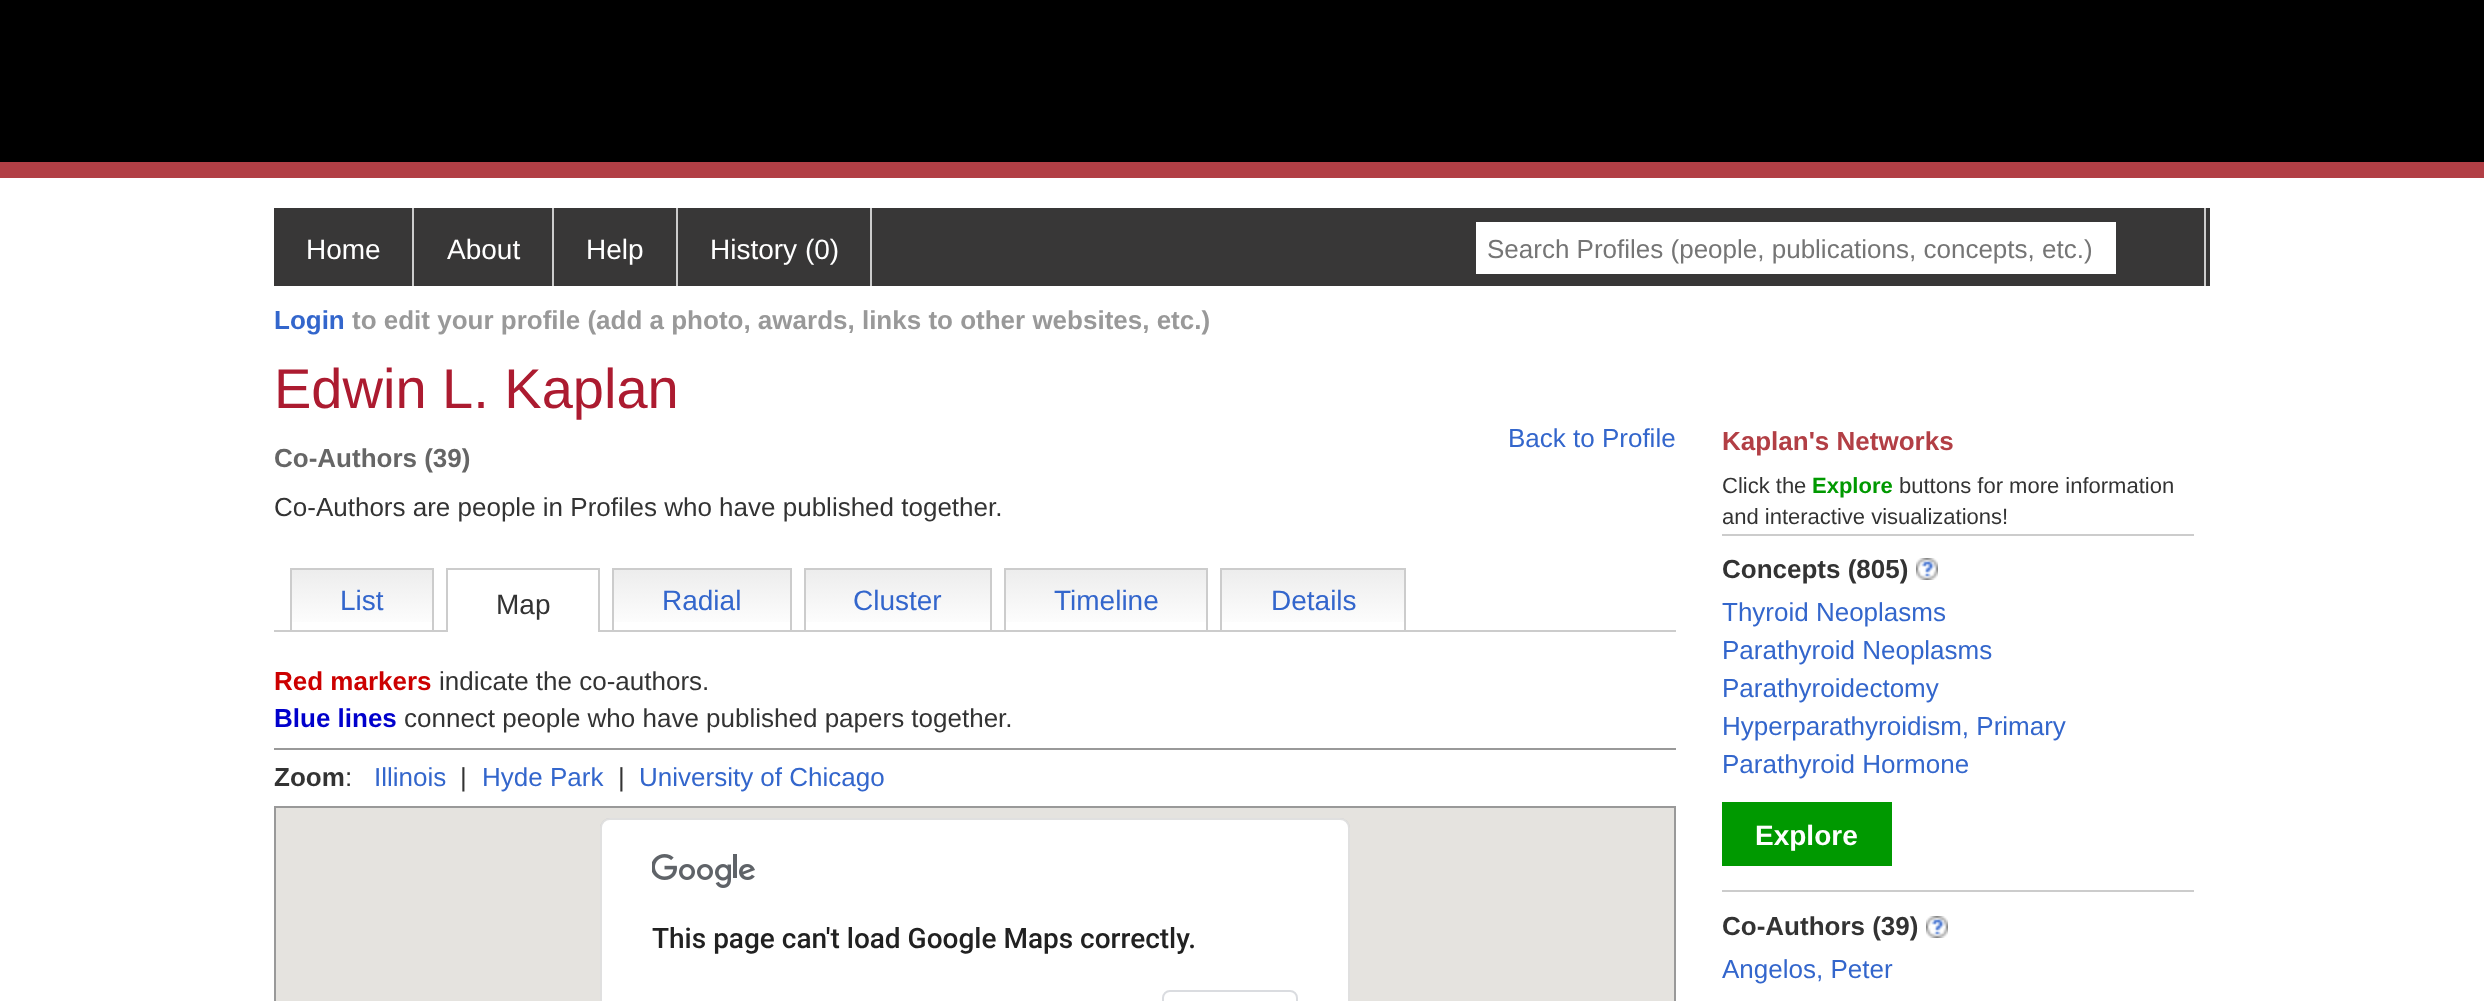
<svg xmlns="http://www.w3.org/2000/svg" width="2484" height="1001" viewBox="0 0 2484 1001">
  <defs>
    <linearGradient id="g1" gradientUnits="userSpaceOnUse" x1="362" y1="570" x2="362" y2="630"><stop offset="0" stop-color="rgb(237,237,237)"/><stop offset="1" stop-color="rgb(255,255,255)"/></linearGradient>
    <linearGradient id="g2" gradientUnits="userSpaceOnUse" x1="702" y1="570" x2="702" y2="630"><stop offset="0" stop-color="rgb(237,237,237)"/><stop offset="1" stop-color="rgb(255,255,255)"/></linearGradient>
    <linearGradient id="g3" gradientUnits="userSpaceOnUse" x1="898" y1="570" x2="898" y2="630"><stop offset="0" stop-color="rgb(237,237,237)"/><stop offset="1" stop-color="rgb(255,255,255)"/></linearGradient>
    <linearGradient id="g4" gradientUnits="userSpaceOnUse" x1="1106" y1="570" x2="1106" y2="630"><stop offset="0" stop-color="rgb(237,237,237)"/><stop offset="1" stop-color="rgb(255,255,255)"/></linearGradient>
    <linearGradient id="g5" gradientUnits="userSpaceOnUse" x1="1313" y1="570" x2="1313" y2="630"><stop offset="0" stop-color="rgb(237,237,237)"/><stop offset="1" stop-color="rgb(255,255,255)"/></linearGradient>
  </defs>
  <rect width="100%" height="100%" fill="rgb(255,255,255)"/>
  <rect x="0" y="0" width="2484" height="162" fill="rgb(0,0,0)"/>
  <rect x="0" y="162" width="2484" height="16" fill="rgb(178,63,69)"/>
  <rect x="274" y="208" width="1936" height="78" fill="rgb(56,55,55)"/>
  <rect x="412" y="208" width="2" height="78" fill="rgb(204,204,204)"/>
  <text x="306" y="259" font-family="Liberation Sans" font-size="28" fill="rgb(255,255,255)">Home</text>
  <rect x="552" y="208" width="2" height="78" fill="rgb(204,204,204)"/>
  <text x="447" y="259" font-family="Liberation Sans" font-size="28" fill="rgb(255,255,255)">About</text>
  <rect x="676" y="208" width="2" height="78" fill="rgb(204,204,204)"/>
  <text x="586" y="259" font-family="Liberation Sans" font-size="28" fill="rgb(255,255,255)">Help</text>
  <rect x="870" y="208" width="2" height="78" fill="rgb(204,204,204)"/>
  <text x="710" y="259" font-family="Liberation Sans" font-size="28" fill="rgb(255,255,255)">History (0)</text>
  <rect x="1476" y="222" width="640" height="52" fill="rgb(255,255,255)"/>
  <text x="1487" y="258" font-family="Liberation Sans" font-size="26" fill="rgb(117,117,117)">Search Profiles (people, publications, concepts, etc.)</text>
  <rect x="2204" y="208" width="2" height="78" fill="rgb(204,204,204)"/>
  <text x="274" y="329" font-family="Liberation Sans" font-size="26" font-weight="bold" fill="rgb(51,102,204)">Login</text>
  <text x="352" y="329" font-family="Liberation Sans" font-size="26" font-weight="bold" fill="rgb(153,153,153)">to edit your profile (add a photo, awards, links to other websites, etc.)</text>
  <text x="274" y="408" font-family="Liberation Sans" font-size="56" fill="rgb(172,27,48)">Edwin L. Kaplan</text>
  <text x="1508" y="447" font-family="Liberation Sans" font-size="26" fill="rgb(51,102,204)">Back to Profile</text>
  <text x="274" y="467" font-family="Liberation Sans" font-size="26" font-weight="bold" fill="rgb(102,102,102)">Co-Authors (39)</text>
  <text x="274" y="516" font-family="Liberation Sans" font-size="26" fill="rgb(51,51,51)">Co-Authors are people in Profiles who have published together.</text>
  <rect x="292" y="570" width="140" height="52" fill="url(#g1)"/>
  <rect x="290" y="568" width="144" height="2" fill="rgb(204,204,204)"/>
  <rect x="432" y="568" width="2" height="62" fill="rgb(204,204,204)"/>
  <rect x="290" y="568" width="2" height="62" fill="rgb(204,204,204)"/>
  <text x="340" y="610" font-family="Liberation Sans" font-size="28" fill="rgb(51,102,204)">List</text>
  <rect x="274" y="630" width="1402" height="2" fill="rgb(204,204,204)"/>
  <rect x="448" y="630" width="150" height="2" fill="rgb(255,255,255)"/>
  <rect x="446" y="568" width="154" height="2" fill="rgb(204,204,204)"/>
  <rect x="598" y="568" width="2" height="64" fill="rgb(204,204,204)"/>
  <rect x="446" y="568" width="2" height="64" fill="rgb(204,204,204)"/>
  <text x="496" y="614" font-family="Liberation Sans" font-size="28" fill="rgb(51,51,51)">Map</text>
  <rect x="614" y="570" width="176" height="52" fill="url(#g2)"/>
  <rect x="612" y="568" width="180" height="2" fill="rgb(204,204,204)"/>
  <rect x="790" y="568" width="2" height="62" fill="rgb(204,204,204)"/>
  <rect x="612" y="568" width="2" height="62" fill="rgb(204,204,204)"/>
  <text x="662" y="610" font-family="Liberation Sans" font-size="28" fill="rgb(51,102,204)">Radial</text>
  <rect x="806" y="570" width="184" height="52" fill="url(#g3)"/>
  <rect x="804" y="568" width="188" height="2" fill="rgb(204,204,204)"/>
  <rect x="990" y="568" width="2" height="62" fill="rgb(204,204,204)"/>
  <rect x="804" y="568" width="2" height="62" fill="rgb(204,204,204)"/>
  <text x="853" y="610" font-family="Liberation Sans" font-size="28" fill="rgb(51,102,204)">Cluster</text>
  <rect x="1006" y="570" width="200" height="52" fill="url(#g4)"/>
  <rect x="1004" y="568" width="204" height="2" fill="rgb(204,204,204)"/>
  <rect x="1206" y="568" width="2" height="62" fill="rgb(204,204,204)"/>
  <rect x="1004" y="568" width="2" height="62" fill="rgb(204,204,204)"/>
  <text x="1054" y="610" font-family="Liberation Sans" font-size="28" fill="rgb(51,102,204)">Timeline</text>
  <rect x="1222" y="570" width="182" height="52" fill="url(#g5)"/>
  <rect x="1220" y="568" width="186" height="2" fill="rgb(204,204,204)"/>
  <rect x="1404" y="568" width="2" height="62" fill="rgb(204,204,204)"/>
  <rect x="1220" y="568" width="2" height="62" fill="rgb(204,204,204)"/>
  <text x="1271" y="610" font-family="Liberation Sans" font-size="28" fill="rgb(51,102,204)">Details</text>
  <text x="274" y="690" font-family="Liberation Sans" font-size="26" font-weight="bold" fill="rgb(204,0,0)">Red markers</text>
  <text x="439" y="690" font-family="Liberation Sans" font-size="26" fill="rgb(51,51,51)">indicate the co-authors.</text>
  <text x="274" y="727" font-family="Liberation Sans" font-size="26" font-weight="bold" fill="rgb(0,0,204)">Blue lines</text>
  <text x="404" y="727" font-family="Liberation Sans" font-size="26" fill="rgb(51,51,51)">connect people who have published papers together.</text>
  <rect x="274" y="748" width="1402" height="2" fill="rgb(153,153,153)"/>
  <text x="274" y="786" font-family="Liberation Sans" font-size="26" font-weight="bold" fill="rgb(51,51,51)">Zoom</text>
  <text x="345" y="786" font-family="Liberation Sans" font-size="26" fill="rgb(51,51,51)">:</text>
  <text x="374" y="786" font-family="Liberation Sans" font-size="26" fill="rgb(51,102,204)">Illinois</text>
  <text x="460" y="786" font-family="Liberation Sans" font-size="26" fill="rgb(51,51,51)">|</text>
  <text x="482" y="786" font-family="Liberation Sans" font-size="26" fill="rgb(51,102,204)">Hyde Park</text>
  <text x="618" y="786" font-family="Liberation Sans" font-size="26" fill="rgb(51,51,51)">|</text>
  <text x="639" y="786" font-family="Liberation Sans" font-size="26" fill="rgb(51,102,204)">University of Chicago</text>
  <rect x="275" y="807" width="1400" height="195" fill="none" stroke="rgb(153,153,153)" stroke-width="2"/>
  <rect x="276" y="808" width="1398" height="193" fill="rgb(229,227,223)"/>
  <rect x="601" y="819" width="748" height="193" rx="9" fill="none" stroke="rgba(0,0,0,0.12)" stroke-width="2"/>
  <rect x="600" y="818" width="750" height="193" rx="10" fill="rgb(255,255,255)"/>
  <rect x="601" y="819" width="748" height="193" rx="9" fill="none" stroke="rgba(0,0,0,0.12)" stroke-width="2"/>
  <image x="652" y="854" width="103" height="34" href="pic1.png"/>
  <text x="652" y="948" font-family="Roboto" font-size="28" font-weight="500" fill="rgb(33,33,33)">This page can't load Google Maps correctly.</text>
  <rect x="1163" y="991" width="134" height="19" rx="7" fill="none" stroke="rgb(218,220,224)" stroke-width="2"/>
  <text x="1722" y="450" font-family="Liberation Sans" font-size="26" font-weight="bold" fill="rgb(178,63,69)">Kaplan's Networks</text>
  <text x="1722" y="493" font-family="Liberation Sans" font-size="22" fill="rgb(51,51,51)">Click the</text>
  <text x="1812" y="493" font-family="Liberation Sans" font-size="22" font-weight="bold" fill="rgb(0,153,0)">Explore</text>
  <g font-family="Liberation Sans" font-size="22" fill="rgb(51,51,51)">
    <text x="1899" y="493">buttons for more information</text>
    <text x="1722" y="524">and interactive visualizations!</text>
  </g>
  <rect x="1722" y="534" width="472" height="2" fill="rgb(204,204,204)"/>
  <text x="1722" y="578" font-family="Liberation Sans" font-size="26" font-weight="bold" fill="rgb(51,51,51)">Concepts (805)</text>
  <image x="1916" y="558" width="22" height="22" href="pic2.png"/>
  <g font-family="Liberation Sans" font-size="26" fill="rgb(51,102,204)">
    <text>
      <tspan x="1722" y="621">Thyroid Neoplasms</tspan>
      <tspan x="1722" y="659">Parathyroid Neoplasms</tspan>
      <tspan x="1722" y="697">Parathyroidectomy</tspan>
      <tspan x="1722" y="735">Hyperparathyroidism, Primary</tspan>
      <tspan x="1722" y="773">Parathyroid Hormone</tspan>
    </text>
  </g>
  <rect x="1722" y="802" width="170" height="64" fill="rgb(0,153,0)"/>
  <text x="1755" y="845" font-family="Liberation Sans" font-size="28" font-weight="bold" fill="rgb(255,255,255)">Explore</text>
  <rect x="1722" y="890" width="472" height="2" fill="rgb(204,204,204)"/>
  <text x="1722" y="935" font-family="Liberation Sans" font-size="26" font-weight="bold" fill="rgb(51,51,51)">Co-Authors (39)</text>
  <image x="1926" y="916" width="22" height="22" href="pic2.png"/>
  <text x="1722" y="978" font-family="Liberation Sans" font-size="26" fill="rgb(51,102,204)">Angelos, Peter</text>
</svg>
